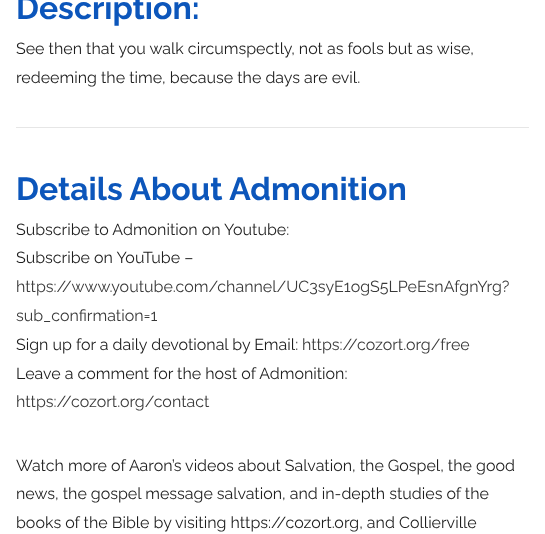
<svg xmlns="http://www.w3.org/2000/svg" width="545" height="534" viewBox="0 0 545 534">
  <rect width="100%" height="100%" fill="rgb(255,255,255)"/>
  <text x="16" y="19" font-family="Raleway" font-size="32" font-weight="bold" fill="rgb(12,86,187)">Description:</text>
  <g font-family="Raleway" font-size="16" fill="rgb(29,29,29)">
    <text>
      <tspan x="16" y="54">See then that you walk circumspectly, not as fools but as wise,</tspan>
      <tspan x="16" y="83">redeeming the time, because the days are evil.</tspan>
    </text>
  </g>
  <rect x="16" y="127" width="513" height="1" fill="rgb(230,230,230)"/>
  <text x="16" y="200" font-family="Raleway" font-size="32" font-weight="bold" fill="rgb(12,86,187)">Details About Admonition</text>
  <g font-family="Raleway" font-size="16" fill="rgb(29,29,29)">
    <text>
      <tspan x="16" y="235">Subscribe to Admonition on Youtube:</tspan>
      <tspan x="16" y="263">Subscribe on YouTube –</tspan>
    </text>
  </g>
  <g font-family="Raleway" font-size="16" fill="rgb(57,57,57)">
    <text>
      <tspan x="16" y="292">https://www.youtube.com/channel/UC3syE1ogS5LPeEsnAfgnYrg?</tspan>
      <tspan x="16" y="321">sub_confirmation=1</tspan>
    </text>
  </g>
  <text x="16" y="350" font-family="Raleway" font-size="16" fill="rgb(29,29,29)">Sign up for a daily devotional by Email:</text>
  <text x="302" y="350" font-family="Raleway" font-size="16" fill="rgb(57,57,57)">https://cozort.org/free</text>
  <text x="16" y="379" font-family="Raleway" font-size="16" fill="rgb(29,29,29)">Leave a comment for the host of Admonition:</text>
  <text x="16" y="407" font-family="Raleway" font-size="16" fill="rgb(57,57,57)">https://cozort.org/contact</text>
  <g font-family="Raleway" font-size="16" fill="rgb(29,29,29)">
    <text>
      <tspan x="16" y="471">Watch more of Aaron’s videos about Salvation, the Gospel, the good</tspan>
      <tspan x="16" y="499">news, the gospel message salvation, and in-depth studies of the</tspan>
      <tspan x="16" y="528">books of the Bible by visiting https://cozort.org, and Collierville</tspan>
    </text>
  </g>
</svg>
